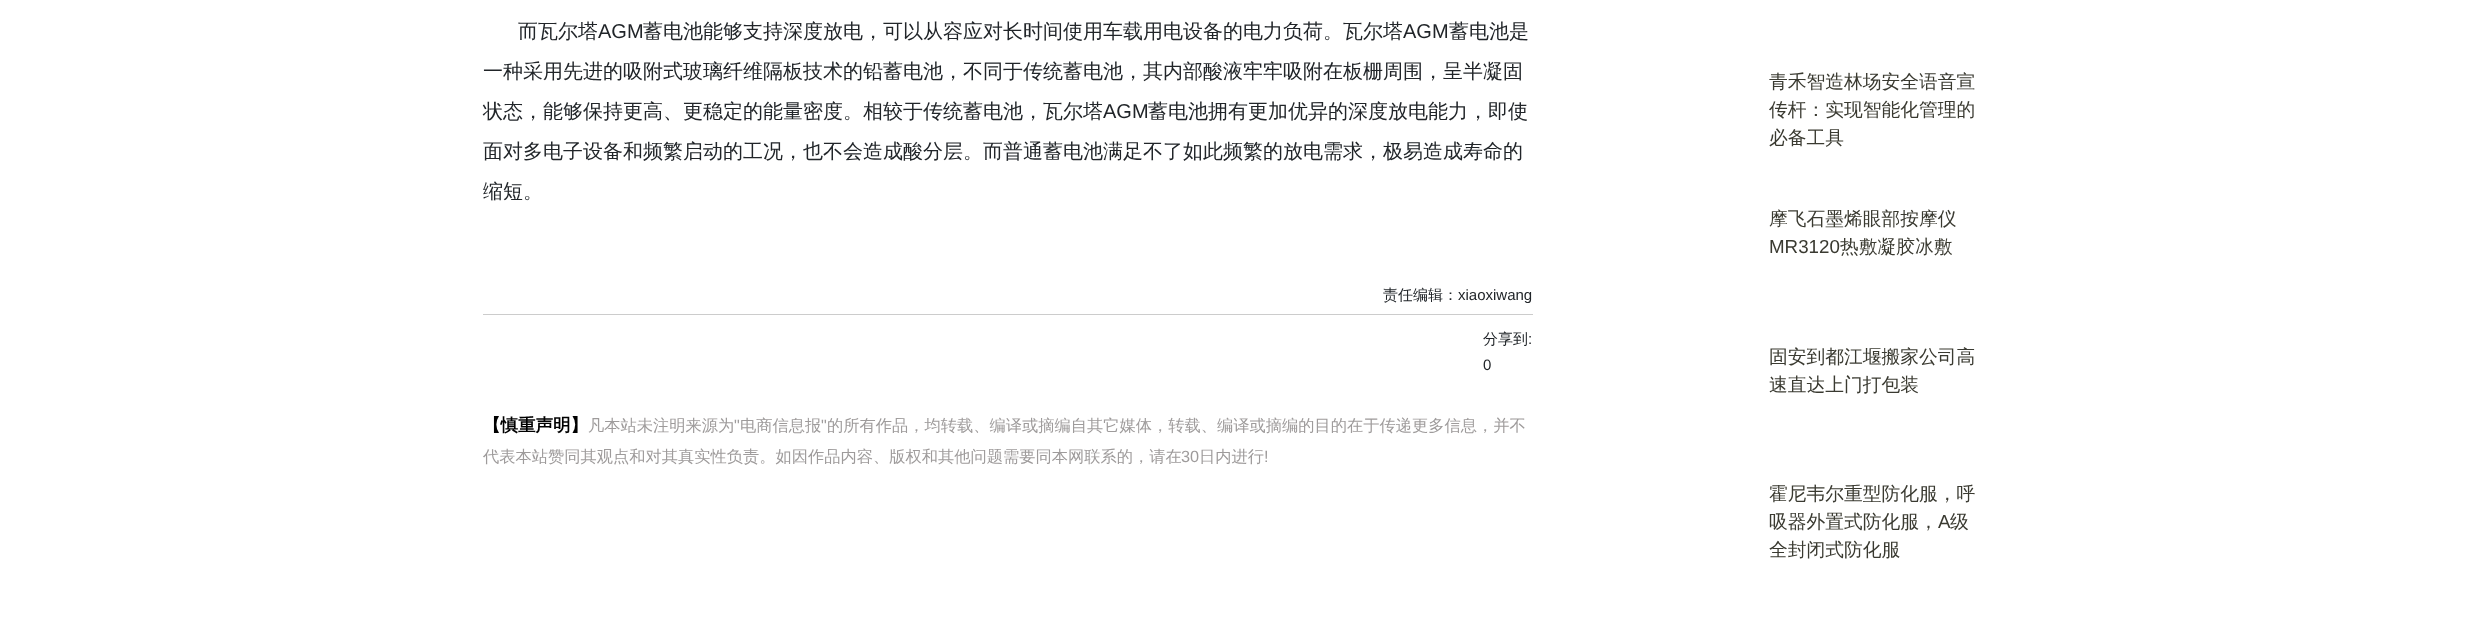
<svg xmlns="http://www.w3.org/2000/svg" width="2465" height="621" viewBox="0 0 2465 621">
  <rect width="100%" height="100%" fill="rgb(255,255,255)"/>
  <text x="518" y="38" font-family="WenQuanYi Zen Hei" font-size="20" font-weight="500" fill="rgb(33,37,41)">而瓦尔塔</text>
  <text x="598" y="38" font-family="Liberation Sans" font-size="20" fill="rgb(33,37,41)">AGM</text>
  <text x="643" y="38" font-family="WenQuanYi Zen Hei" font-size="20" font-weight="500" fill="rgb(33,37,41)">蓄电池能够支持深度放电，可以从容应对长时间使用车载用电设备的电力负荷。瓦尔塔</text>
  <text x="1403" y="38" font-family="Liberation Sans" font-size="20" fill="rgb(33,37,41)">AGM</text>
  <g font-family="WenQuanYi Zen Hei" font-size="20" font-weight="500" fill="rgb(33,37,41)">
    <text x="1449" y="38">蓄电池是</text>
    <text x="483" y="78">一种采用先进的吸附式玻璃纤维隔板技术的铅蓄电池，不同于传统蓄电池，其内部酸液牢牢吸附在板栅周围，呈半凝固</text>
    <text x="483" y="118">状态，能够保持更高、更稳定的能量密度。相较于传统蓄电池，瓦尔塔</text>
  </g>
  <text x="1103" y="118" font-family="Liberation Sans" font-size="20" fill="rgb(33,37,41)">AGM</text>
  <g font-family="WenQuanYi Zen Hei" font-size="20" font-weight="500" fill="rgb(33,37,41)">
    <text x="1148" y="118">蓄电池拥有更加优异的深度放电能力，即使</text>
    <text x="483" y="158">面对多电子设备和频繁启动的工况，也不会造成酸分层。而普通蓄电池满足不了如此频繁的放电需求，极易造成寿命的</text>
    <text x="483" y="198">缩短。</text>
  </g>
  <text x="1383" y="300" font-family="WenQuanYi Zen Hei" font-size="15" font-weight="500" fill="rgb(33,37,41)">责任编辑：</text>
  <text x="1458" y="300" font-family="Liberation Sans" font-size="15" fill="rgb(33,37,41)">xiaoxiwang</text>
  <rect x="483" y="314" width="1050" height="1" fill="rgb(204,204,204)"/>
  <text x="1483" y="344" font-family="WenQuanYi Zen Hei" font-size="15" font-weight="500" fill="rgb(33,37,41)">分享到</text>
  <g font-family="Liberation Sans" font-size="15" fill="rgb(33,37,41)">
    <text x="1528" y="344">:</text>
    <text x="1483" y="370">0</text>
  </g>
  <text x="483" y="431" font-family="WenQuanYi Zen Hei" font-size="17.5" font-weight="bold" fill="rgb(0,0,0)">【慎重声明】</text>
  <text x="588" y="431" font-family="WenQuanYi Zen Hei" font-size="16.25" font-weight="500" fill="rgb(158,155,155)">凡本站未注明来源为</text>
  <text x="734" y="431" font-family="Liberation Sans" font-size="16.25" fill="rgb(158,155,155)">"</text>
  <text x="740" y="431" font-family="WenQuanYi Zen Hei" font-size="16.25" font-weight="500" fill="rgb(158,155,155)">电商信息报</text>
  <text x="821" y="431" font-family="Liberation Sans" font-size="16.25" fill="rgb(158,155,155)">"</text>
  <g font-family="WenQuanYi Zen Hei" font-size="16.25" font-weight="500" fill="rgb(158,155,155)">
    <text x="827" y="431">的所有作品，均转载、编译或摘编自其它媒体，转载、编译或摘编的目的在于传递更多信息，并不</text>
    <text x="483" y="462">代表本站赞同其观点和对其真实性负责。如因作品内容、版权和其他问题需要同本网联系的，请在</text>
  </g>
  <text x="1181" y="462" font-family="Liberation Sans" font-size="16.25" fill="rgb(158,155,155)">30</text>
  <text x="1199" y="462" font-family="WenQuanYi Zen Hei" font-size="16.25" font-weight="500" fill="rgb(158,155,155)">日内进行</text>
  <text x="1264" y="462" font-family="Liberation Sans" font-size="16.25" fill="rgb(158,155,155)">!</text>
  <g font-family="WenQuanYi Zen Hei" font-size="18.75" font-weight="500" fill="rgb(58,58,49)">
    <text>
      <tspan x="1769" y="88">青禾智造林场安全语音宣</tspan>
      <tspan x="1769" y="116">传杆：实现智能化管理的</tspan>
      <tspan x="1769" y="144">必备工具</tspan>
    </text>
    <text x="1769" y="225">摩飞石墨烯眼部按摩仪</text>
  </g>
  <text x="1769" y="253" font-family="Liberation Sans" font-size="18.75" fill="rgb(58,58,49)">MR3120</text>
  <g font-family="WenQuanYi Zen Hei" font-size="18.75" font-weight="500" fill="rgb(58,58,49)">
    <text x="1840" y="253">热敷凝胶冰敷</text>
    <text>
      <tspan x="1769" y="363">固安到都江堰搬家公司高</tspan>
      <tspan x="1769" y="391">速直达上门打包装</tspan>
    </text>
    <text>
      <tspan x="1769" y="500">霍尼韦尔重型防化服，呼</tspan>
      <tspan x="1769" y="528">吸器外置式防化服，</tspan>
    </text>
  </g>
  <text x="1938" y="528" font-family="Liberation Sans" font-size="18.75" fill="rgb(58,58,49)">A</text>
  <g font-family="WenQuanYi Zen Hei" font-size="18.75" font-weight="500" fill="rgb(58,58,49)">
    <text x="1950" y="528">级</text>
    <text x="1769" y="556">全封闭式防化服</text>
  </g>
</svg>
